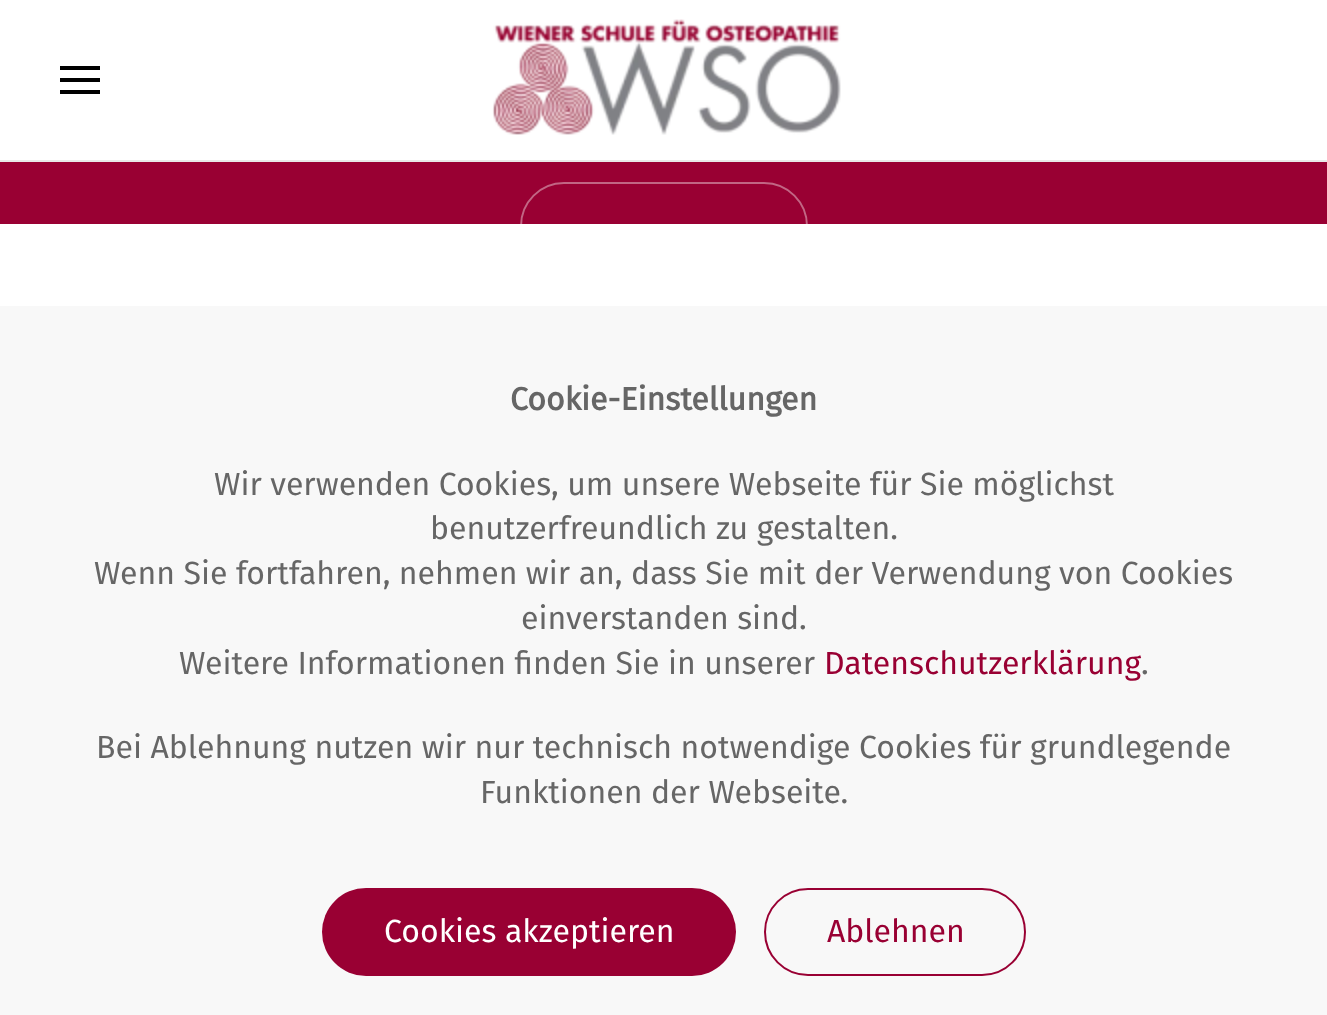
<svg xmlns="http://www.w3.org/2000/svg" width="1327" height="1015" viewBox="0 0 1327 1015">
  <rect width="100%" height="100%" fill="rgb(255,255,255)"/>
  <rect x="0" y="160" width="1327" height="2" fill="rgb(232,232,232)"/>
  <rect x="60" y="66" width="40" height="4" fill="rgb(0,0,0)"/>
  <rect x="60" y="78" width="40" height="4" fill="rgb(0,0,0)"/>
  <rect x="60" y="90" width="40" height="4" fill="rgb(0,0,0)"/>
  <image x="492" y="19" width="349" height="116" href="pic1.png"/>
  <rect x="0" y="162" width="1327" height="62" fill="rgb(153,0,51)"/>
  <rect x="521" y="183" width="286" height="86" rx="43" fill="none" stroke="rgba(255,255,255,0.4)" stroke-width="2"/>
  <rect x="0" y="306" width="1327" height="709" fill="rgb(248,248,248)"/>
  <text x="510" y="410" font-family="Fira Sans" font-size="32" font-weight="bold" fill="rgb(102,102,102)">Cookie-Einstellungen</text>
  <g font-family="Fira Sans" font-size="32" fill="rgb(102,102,102)">
    <text x="214" y="495">Wir verwenden Cookies, um unsere Webseite für Sie möglichst</text>
    <text x="430" y="539">benutzerfreundlich zu gestalten.</text>
    <text x="94" y="584">Wenn Sie fortfahren, nehmen wir an, dass Sie mit der Verwendung von Cookies</text>
    <text x="521" y="629">einverstanden sind.</text>
    <text x="179" y="674">Weitere Informationen finden Sie in unserer</text>
  </g>
  <text x="824" y="674" font-family="Fira Sans" font-size="32" fill="rgb(153,0,51)">Datenschutzerklärung</text>
  <g font-family="Fira Sans" font-size="32" fill="rgb(102,102,102)">
    <text x="1141" y="674">.</text>
    <text x="96" y="758">Bei Ablehnung nutzen wir nur technisch notwendige Cookies für grundlegende</text>
    <text x="480" y="803">Funktionen der Webseite.</text>
  </g>
  <rect x="322" y="888" width="414" height="88" rx="44" fill="rgb(153,0,51)"/>
  <text x="384" y="942" font-family="Fira Sans" font-size="32" fill="rgb(255,255,255)">Cookies akzeptieren</text>
  <rect x="765" y="889" width="260" height="86" rx="43" fill="none" stroke="rgb(153,0,51)" stroke-width="2"/>
  <text x="827" y="942" font-family="Fira Sans" font-size="32" fill="rgb(153,0,51)">Ablehnen</text>
</svg>
